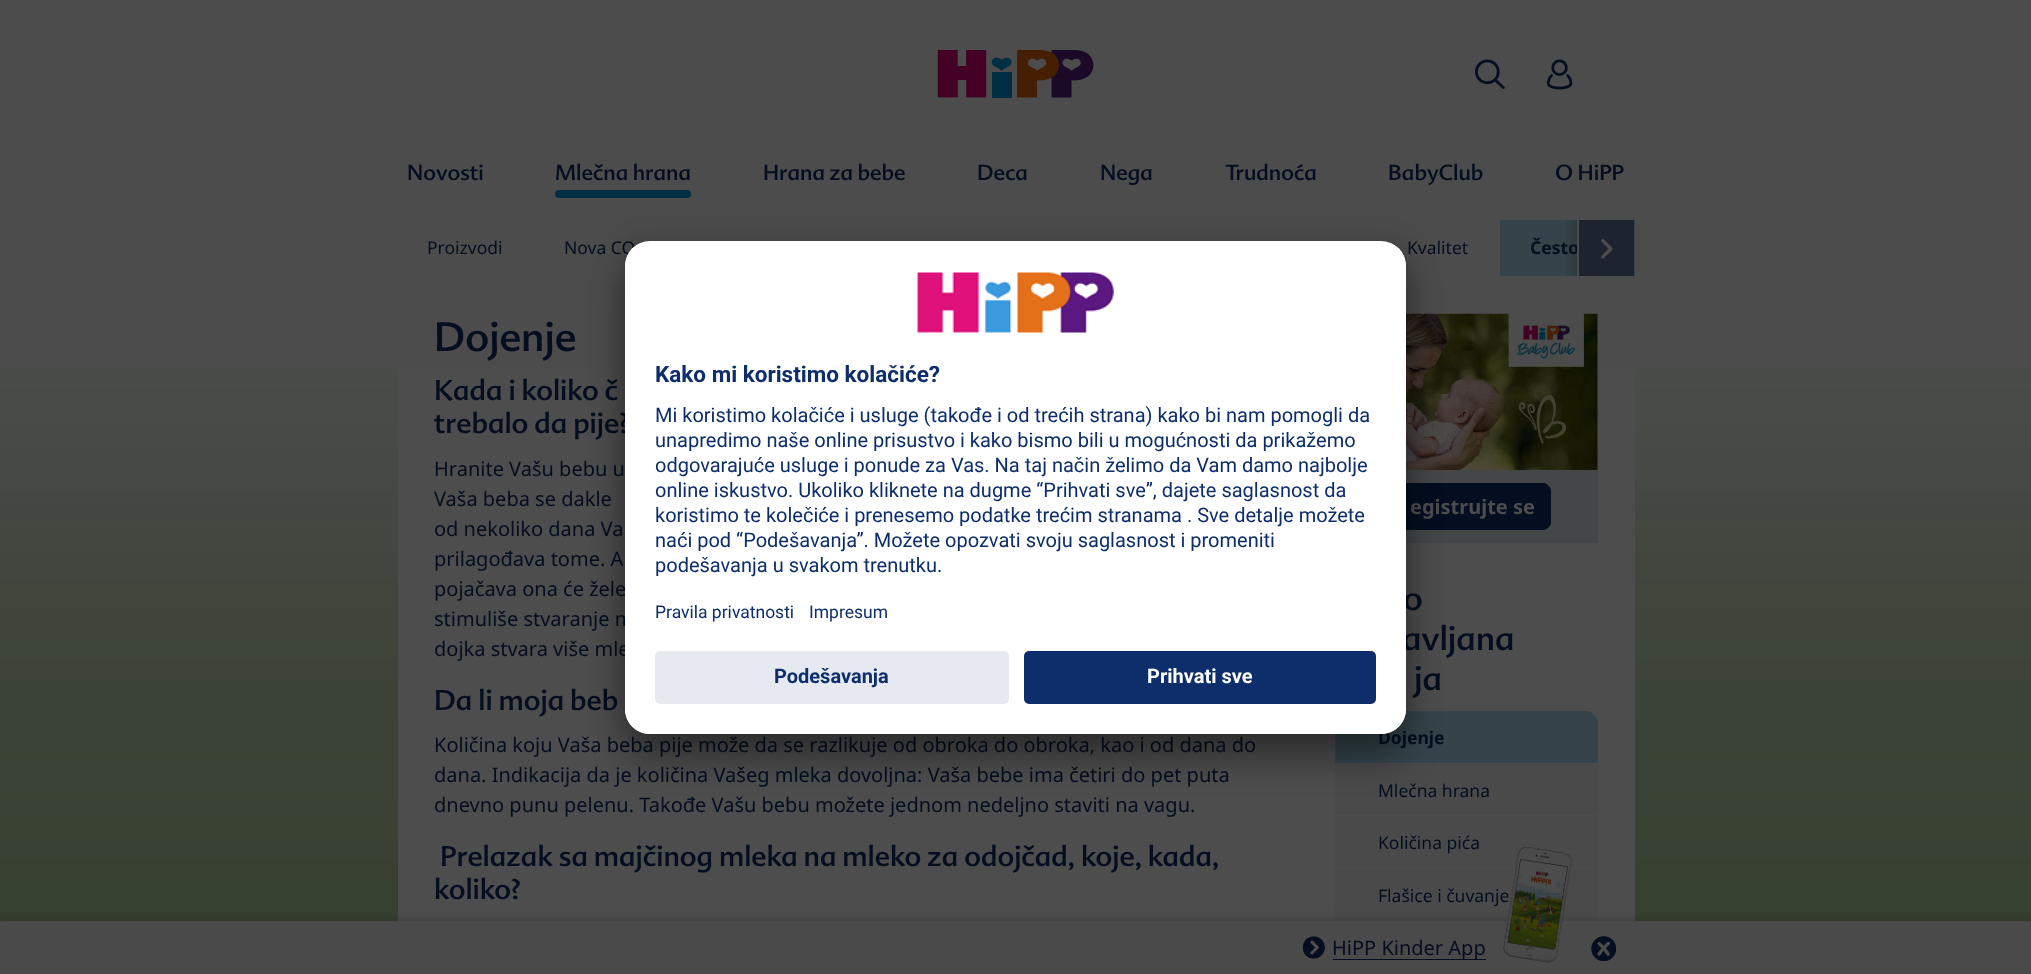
<svg xmlns="http://www.w3.org/2000/svg" width="2031" height="974" viewBox="0 0 2031 974">
  <defs>
    <linearGradient id="g1" gradientUnits="userSpaceOnUse" x1="1563" y1="237" x2="1577" y2="237"><stop offset="0" stop-color="rgb(26,26,26)" stop-opacity="0"/><stop offset="1" stop-color="rgb(26,26,26)" stop-opacity="0.25"/></linearGradient>
    <clipPath id="clip1"><rect x="625" y="241" width="781" height="493" rx="25"/></clipPath>
    <clipPath id="clip2"><path d="M650 241H1381C1395 241 1406 252 1406 266V641H625V266C625 252 636 241 650 241Z"/></clipPath>
  </defs>
  <rect width="100%" height="100%" fill="rgb(255,255,255)"/>
  <image x="0" y="0" width="2031" height="921" href="pic1.png"/>
  <image x="937" y="50" width="157" height="48" href="pic2.png"/>
  <image x="1475" y="59" width="30" height="30" href="pic3.png"/>
  <image x="1546" y="59" width="27" height="31" href="pic4.png"/>
  <g font-family="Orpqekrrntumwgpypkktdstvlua" font-size="21.25" fill="rgb(4,14,32)">
    <text x="407" y="180">Novosti</text>
    <text x="555" y="180">Mlečna hrana</text>
  </g>
  <rect x="555" y="190" width="136" height="8" rx="4" fill="rgb(0,47,68)"/>
  <g font-family="Orpqekrrntumwgpypkktdstvlua" font-size="21.25" fill="rgb(4,14,32)">
    <text x="763" y="180">Hrana za bebe</text>
    <text x="977" y="180">Deca</text>
    <text x="1100" y="180">Nega</text>
    <text x="1225" y="180">Trudnoća</text>
    <text x="1388" y="180">BabyClub</text>
    <text x="1555" y="180">O HiPP</text>
  </g>
  <g font-family="Noto Sans" font-size="17.5" fill="rgb(4,14,32)">
    <text x="427" y="254">Proizvodi</text>
    <text x="564" y="254">Nova CO</text>
    <text x="1407" y="254">Kvalitet</text>
  </g>
  <rect x="1500" y="220" width="135" height="56" fill="rgb(53,68,74)"/>
  <text x="1530" y="254" font-family="Noto Sans" font-size="17.5" font-weight="bold" fill="rgb(4,14,32)">Često</text>
  <rect x="1579" y="220" width="55" height="56" fill="rgb(29,36,47)"/>
  <path d="M1612 247.5L1604 239.5C1603.5 238.5 1602.5 238.5 1601.5 239.5C1601 240 1601 241 1601.5 241.5L1608.5 248.5C1607.5 250 1601.5 255.5 1601 257L1601.5 258C1603 259.5 1604.5 257.5 1605 257L1610.5 251.5C1611.5 250.5 1613.5 249 1612 247.5Z" fill="rgb(77,77,77)"/>
  <rect x="1566" y="220" width="11" height="56" fill="url(#g1)"/>
  <rect x="1577" y="220" width="2" height="56" fill="rgb(77,77,77)"/>
  <rect x="398" y="369" width="1237" height="552" fill="rgb(77,77,77)"/>
  <text x="434" y="351" font-family="Orpqekrrntumwgpypkktdstvlua" font-size="40" fill="rgb(4,14,32)">Dojenje</text>
  <g font-family="Orpqekrrntumwgpypkktdstvlua" font-size="28" fill="rgb(4,14,32)">
    <text>
      <tspan x="434" y="400">Kada i koliko č</tspan>
      <tspan x="434" y="433">trebalo da pije?</tspan>
    </text>
  </g>
  <g font-family="Noto Sans" font-size="20" fill="rgb(4,14,32)">
    <text>
      <tspan x="434" y="476">Hranite Vašu bebu u</tspan>
      <tspan x="434" y="506">Vaša beba se dakle</tspan>
      <tspan x="434" y="536">od nekoliko dana Va</tspan>
      <tspan x="434" y="566">prilagođava tome. A</tspan>
      <tspan x="434" y="596">pojačava ona će žele</tspan>
      <tspan x="434" y="626">stimuliše stvaranje m</tspan>
      <tspan x="434" y="656">dojka stvara više mle</tspan>
    </text>
  </g>
  <text x="434" y="710" font-family="Orpqekrrntumwgpypkktdstvlua" font-size="28" fill="rgb(4,14,32)">Da li moja beb</text>
  <g font-family="Noto Sans" font-size="20" fill="rgb(4,14,32)">
    <text>
      <tspan x="434" y="752">Količina koju Vaša beba pije može da se razlikuje od obroka do obroka, kao i od dana do</tspan>
      <tspan x="434" y="782">dana. Indikacija da je količina Vašeg mleka dovoljna: Vaša bebe ima četiri do pet puta</tspan>
      <tspan x="434" y="812">dnevno punu pelenu. Takođe Vašu bebu možete jednom nedeljno staviti na vagu.</tspan>
    </text>
  </g>
  <g font-family="Orpqekrrntumwgpypkktdstvlua" font-size="28" fill="rgb(4,14,32)">
    <text x="440" y="866">Prelazak sa majčinog mleka na mleko za odojčad, koje, kada,</text>
    <text x="434" y="899">koliko?</text>
  </g>
  <rect x="1406" y="314" width="192" height="229" fill="rgb(69,70,72)"/>
  <image x="1406" y="313" width="192" height="157" href="pic5.png"/>
  <rect x="1380.5" y="483.5" width="170" height="46" rx="7.5" fill="rgb(4,14,32)" stroke="rgb(4,14,32)"/>
  <text x="1410" y="514" font-family="Noto Sans" font-size="20" font-weight="bold" fill="rgb(77,77,77)">egistrujte se</text>
  <g font-family="Orpqekrrntumwgpypkktdstvlua" font-size="33" fill="rgb(4,14,32)">
    <text x="1403" y="610">o</text>
    <text x="1402" y="650">avljana</text>
    <text x="1414" y="690">ja</text>
  </g>
  <rect x="1335" y="711" width="263" height="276" rx="13" fill="rgb(74,74,74)"/>
  <path d="M1348 711H1585C1592 711 1598 717 1598 724V763H1335V724C1335 717 1341 711 1348 711Z" fill="rgb(53,68,74)"/>
  <text x="1378" y="744" font-family="Noto Sans" font-size="17.5" font-weight="bold" fill="rgb(4,14,32)">Dojenje</text>
  <rect x="1335" y="763" width="263" height="1" fill="rgb(77,77,77)"/>
  <text x="1378" y="797" font-family="Noto Sans" font-size="17.5" fill="rgb(4,14,32)">Mlečna hrana</text>
  <rect x="1335" y="815" width="263" height="1" fill="rgb(77,77,77)"/>
  <text x="1378" y="849" font-family="Noto Sans" font-size="17.5" fill="rgb(4,14,32)">Količina pića</text>
  <rect x="1335" y="868" width="263" height="1" fill="rgb(77,77,77)"/>
  <text x="1378" y="902" font-family="Noto Sans" font-size="17.5" fill="rgb(4,14,32)">Flašice i čuvanje</text>
  <rect x="1335" y="920" width="263" height="1" fill="rgb(77,77,77)"/>
  <rect x="625" y="266" width="781" height="493" rx="25" fill="rgba(0,0,0,0.3)" filter="blur(17.5px)"/>
  <rect x="625" y="248" width="781" height="492" rx="25" fill="rgba(0,0,0,0.22)" filter="blur(16px)"/>
  <rect x="625" y="241" width="781" height="493" rx="25" fill="rgb(255,255,255)"/>
  <g clip-path="url(#clip1)">
    <g clip-path="url(#clip2)">
      <rect x="625" y="243" width="781" height="398" fill="rgb(255,255,255)"/>
    </g>
  </g>
  <image x="917" y="272" width="197" height="61" href="pic6.png"/>
  <text x="655" y="382" font-family="Roboto" font-size="22.5" font-weight="bold" fill="rgb(13,46,107)">Kako mi koristimo kolačiće?</text>
  <g font-family="Roboto" font-size="20" fill="rgb(13,46,107)">
    <text>
      <tspan x="655" y="422">Mi koristimo kolačiće i usluge (takođe i od trećih strana) kako bi nam pomogli da</tspan>
      <tspan x="655" y="447">unapredimo naše online prisustvo i kako bismo bili u mogućnosti da prikažemo</tspan>
      <tspan x="655" y="472">odgovarajuće usluge i ponude za Vas. Na taj način želimo da Vam damo najbolje</tspan>
      <tspan x="655" y="497">online iskustvo. Ukoliko kliknete na dugme “Prihvati sve”, dajete saglasnost da</tspan>
      <tspan x="655" y="522">koristimo te kolečiće i prenesemo podatke trećim stranama . Sve detalje možete</tspan>
      <tspan x="655" y="547">naći pod “Podešavanja”. Možete opozvati svoju saglasnost i promeniti</tspan>
      <tspan x="655" y="572">podešavanja u svakom trenutku.</tspan>
    </text>
  </g>
  <g font-family="Roboto" font-size="17.5" fill="rgb(13,46,107)">
    <text x="655" y="618">Pravila privatnosti</text>
    <text x="809" y="618">Impresum</text>
  </g>
  <path d="M625 641H1406V709C1406 723 1395 734 1381 734H650C636 734 625 723 625 709Z" fill="rgb(255,255,255)"/>
  <rect x="655" y="651" width="354" height="53" rx="5" fill="rgb(230,234,240)"/>
  <text x="774" y="683" font-family="Roboto" font-size="20" font-weight="bold" fill="rgb(13,46,107)">Podešavanja</text>
  <rect x="1024" y="651" width="352" height="53" rx="5" fill="rgb(13,46,107)"/>
  <text x="1147" y="683" font-family="Roboto" font-size="20" font-weight="bold" fill="rgb(255,255,255)">Prihvati sve</text>
  <rect x="0" y="923" width="2031" height="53" fill="rgba(18,19,20,0.5)" filter="blur(6px)"/>
  <rect x="0" y="921" width="2031" height="53" fill="rgb(74,74,74)"/>
  <image x="1303" y="936" width="22" height="23" href="pic7.png"/>
  <rect x="1333" y="959" width="153" height="1" fill="rgb(4,14,32)"/>
  <text x="1332" y="955" font-family="Noto Sans" font-size="20" fill="rgb(4,14,32)">HiPP Kinder App</text>
  <image x="1503" y="846" width="69" height="117" href="pic8.png"/>
  <image x="1591" y="936" width="25" height="25" href="pic9.png"/>
</svg>
